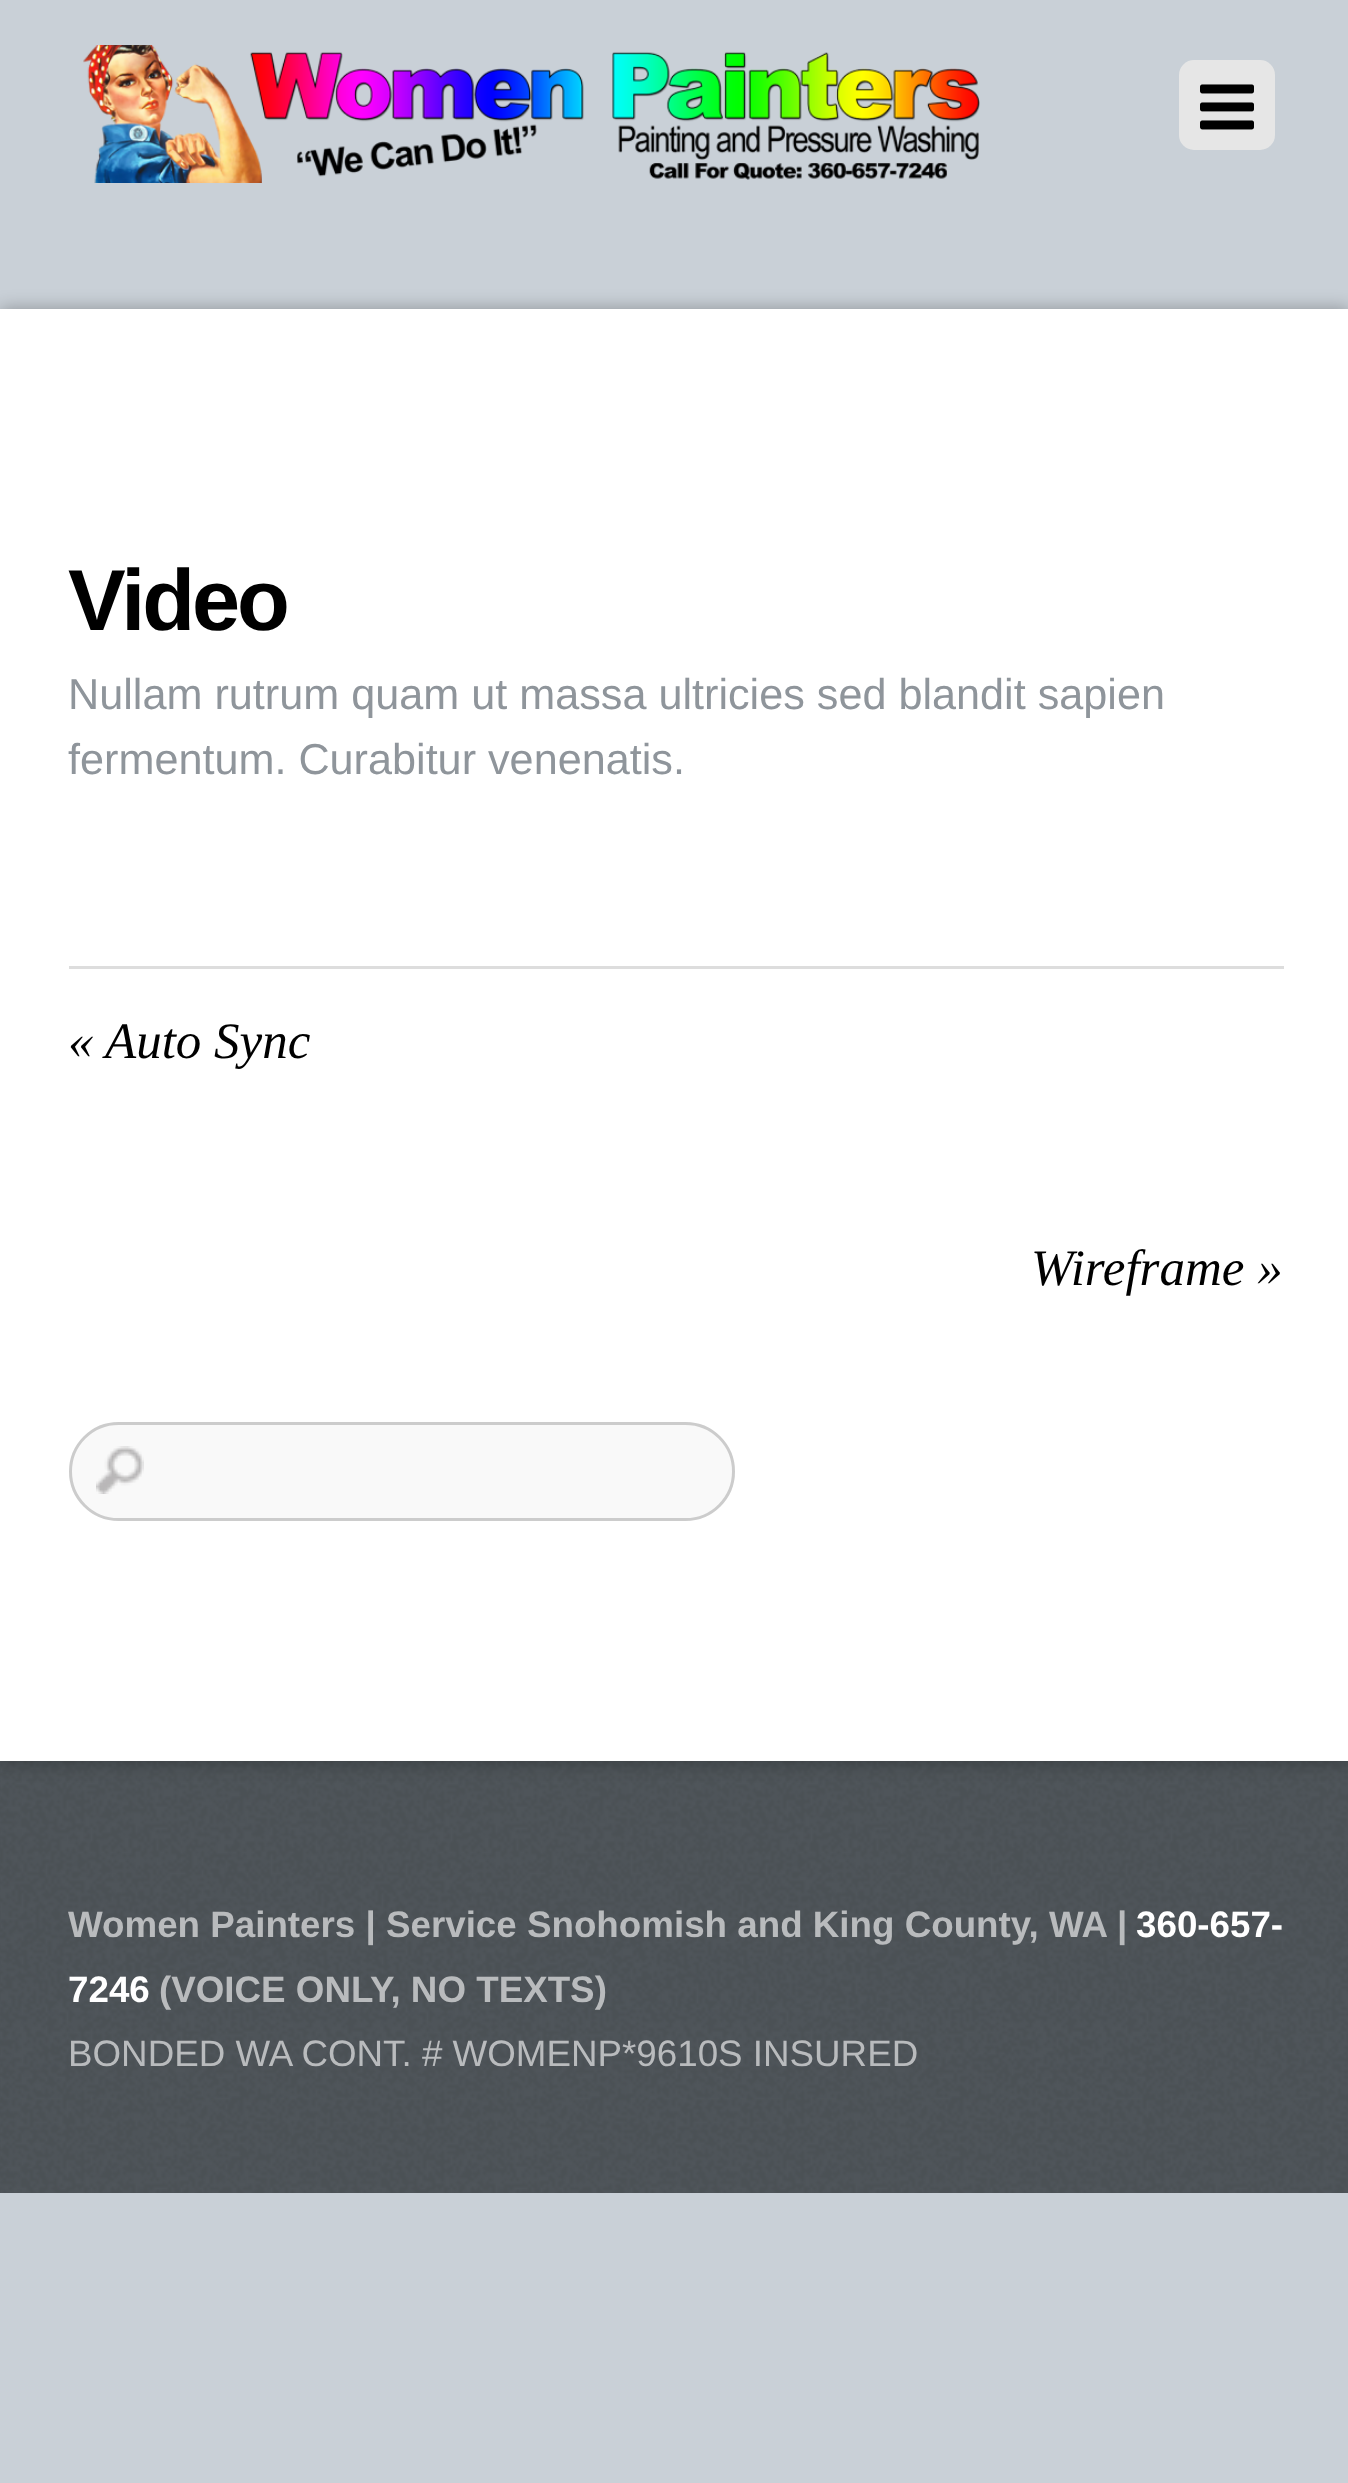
<svg xmlns="http://www.w3.org/2000/svg" width="1348" height="2483" viewBox="0 0 1348 2483">
  <rect width="100%" height="100%" fill="rgb(201,208,215)"/>
  <image x="83" y="45" width="897" height="138" href="pic1.png"/>
  <rect x="1179" y="60" width="96" height="90" rx="15" fill="rgb(230,230,230)"/>
  <image x="1200" y="84" width="54" height="46" href="pic2.png"/>
  <image x="0" y="1761" width="1348" height="432" href="pic4.png"/>
  <rect x="0" y="309" width="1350" height="1452" fill="rgba(0,0,0,0.3)" filter="blur(9px)"/>
  <rect x="0" y="309" width="1348" height="1452" fill="rgb(255,255,255)"/>
  <text x="68" y="630" font-family="Liberation Sans" font-size="86.5" font-weight="bold" letter-spacing="-3" fill="rgb(0,0,0)">Video</text>
  <g font-family="Liberation Sans" font-size="43.2" fill="rgb(143,149,155)">
    <text>
      <tspan x="68" y="709">Nullam rutrum quam ut massa ultricies sed blandit sapien</tspan>
      <tspan x="68" y="774">fermentum. Curabitur venenatis.</tspan>
    </text>
  </g>
  <rect x="69" y="966" width="1215" height="3" fill="rgb(221,221,221)"/>
  <g font-family="Liberation Serif" font-size="51" font-style="italic" fill="rgb(0,0,0)">
    <text x="68" y="1058">«</text>
    <text x="105" y="1058">Auto Sync</text>
    <text x="1031" y="1285">Wireframe »</text>
  </g>
  <rect x="69" y="1422" width="666" height="99" rx="49.5" fill="rgb(249,249,249)"/>
  <image x="96" y="1446" width="48" height="48" href="pic3.png"/>
  <rect x="70.5" y="1423.5" width="663" height="96" rx="48" fill="none" stroke="rgb(204,204,204)" stroke-width="3"/>
  <text x="68" y="1937" font-family="Liberation Sans" font-size="36.75" font-weight="bold" fill="rgb(185,187,189)">Women Painters | Service Snohomish and King County, WA |</text>
  <g font-family="Liberation Sans" font-size="36.75" font-weight="bold" fill="rgb(255,255,255)">
    <text x="1136" y="1937">360-657-</text>
    <text x="68" y="2002">7246</text>
  </g>
  <text x="159" y="2002" font-family="Liberation Sans" font-size="36.75" font-weight="bold" fill="rgb(185,187,189)">(VOICE ONLY, NO TEXTS)</text>
  <text x="68" y="2066" font-family="Liberation Sans" font-size="36.75" fill="rgb(185,187,189)">BONDED WA CONT. # WOMENP*9610S INSURED</text>
</svg>
